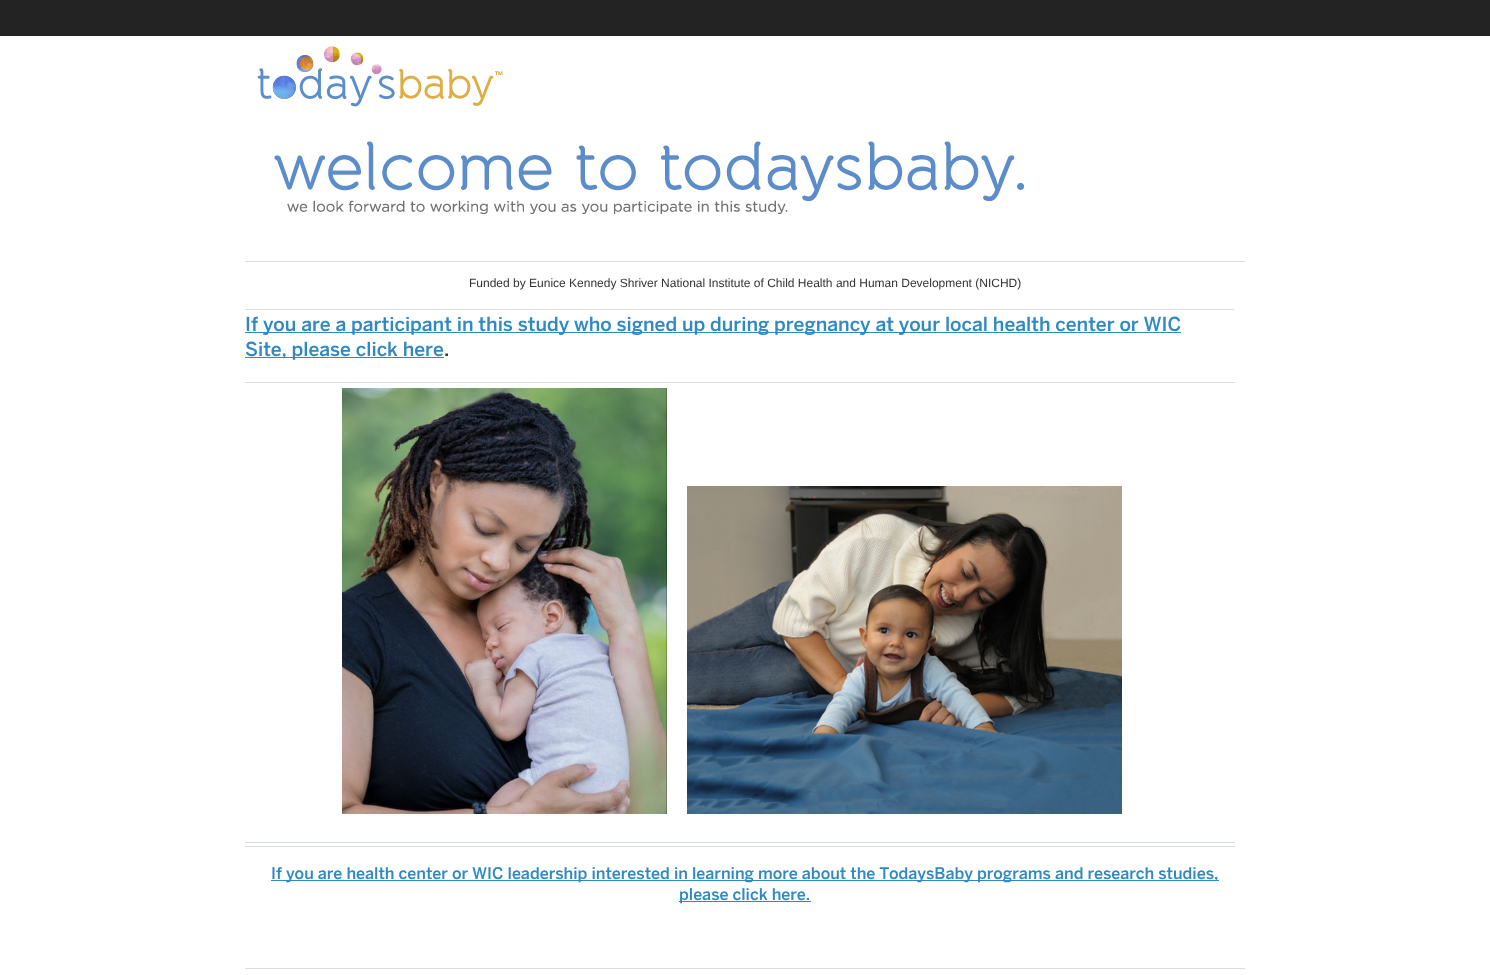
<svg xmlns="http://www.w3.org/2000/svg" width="1490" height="975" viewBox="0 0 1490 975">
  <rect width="100%" height="100%" fill="rgb(255,255,255)"/>
  <rect x="0" y="0" width="1490" height="36" fill="rgb(35,35,35)"/>
  <image x="257" y="46" width="246" height="61" href="pic1.png"/>
  <image x="274" y="141" width="751" height="73" href="pic2.png"/>
  <rect x="245" y="261" width="1000" height="1" fill="rgb(216,221,221)"/>
  <text x="469" y="287" font-family="Liberation Sans" font-size="12" fill="rgb(51,51,51)">Funded by Eunice Kennedy Shriver National Institute of Child Health and Human Development (NICHD)</text>
  <rect x="245" y="309" width="989" height="1" fill="rgb(216,221,221)"/>
  <rect x="245" y="382" width="990" height="1" fill="rgb(216,221,221)"/>
  <rect x="245" y="332" width="936" height="1" fill="rgb(48,137,194)"/>
  <text x="245" y="331" font-family="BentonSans" font-size="19.2" font-weight="500" fill="rgb(48,137,194)">If you are a participant in this study who signed up during pregnancy at your local health center or WIC</text>
  <rect x="245" y="357" width="199" height="1" fill="rgb(48,137,194)"/>
  <text x="245" y="356" font-family="BentonSans" font-size="19.2" font-weight="500" fill="rgb(48,137,194)">Site, please click here</text>
  <text x="444" y="356" font-family="BentonSans" font-size="19.2" font-weight="500" fill="rgb(51,51,51)">.</text>
  <rect x="245" y="842" width="990" height="1" fill="rgb(216,221,221)"/>
  <image x="342" y="388" width="325" height="426" href="pic3.png"/>
  <image x="687" y="486" width="435" height="328" href="pic4.png"/>
  <rect x="245" y="846" width="990" height="1" fill="rgb(216,221,221)"/>
  <rect x="271" y="880" width="948" height="1" fill="rgb(48,137,194)"/>
  <text x="271" y="879" font-family="BentonSans" font-size="16" font-weight="500" fill="rgb(48,137,194)">If you are health center or WIC leadership interested in learning more about the TodaysBaby programs and research studies,</text>
  <rect x="679" y="901" width="132" height="1" fill="rgb(48,137,194)"/>
  <text x="679" y="900" font-family="BentonSans" font-size="16" font-weight="500" fill="rgb(48,137,194)">please click here.</text>
  <rect x="245" y="968" width="1000" height="1" fill="rgb(216,221,221)"/>
</svg>
